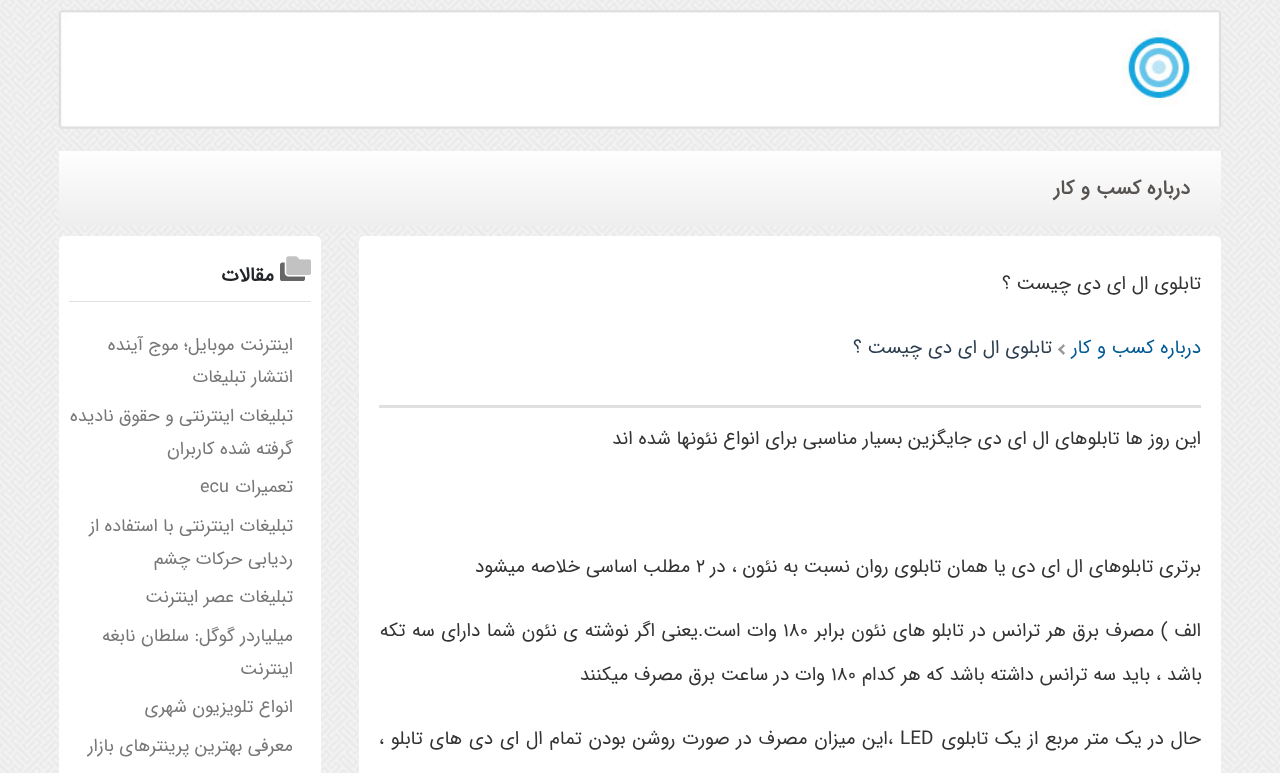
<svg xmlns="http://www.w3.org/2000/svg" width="1280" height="773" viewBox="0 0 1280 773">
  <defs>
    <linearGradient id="g1" gradientUnits="userSpaceOnUse" x1="640" y1="151" x2="640" y2="226"><stop offset="0" stop-color="rgb(254,254,254)"/><stop offset="1" stop-color="rgb(238,238,238)"/></linearGradient>
  </defs>
  <rect width="100%" height="100%" fill="rgb(255,255,255)"/>
  <image x="0" y="0" width="1280" height="773" href="pic1.png"/>
  <image x="58" y="10" width="1164" height="119" href="pic2.png"/>
  <rect x="59" y="151" width="1162" height="75" fill="url(#g1)"/>
  <text x="1190" y="194" font-family="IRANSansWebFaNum" font-size="20" font-weight="bold" direction="rtl" fill="rgb(87,83,81)">درباره کسب و کار</text>
  <rect x="359" y="236" width="862" height="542" rx="5" fill="rgb(255,255,255)"/>
  <rect x="379" y="405" width="822" height="3" fill="rgb(224,224,224)"/>
  <text x="1201" y="289" font-family="IRANSansWebFaNum" font-size="19" direction="rtl" fill="rgb(51,51,51)">تابلوي ال اي دي چيست ؟</text>
  <text x="1201" y="353" font-family="IRANSansWebFaNum" font-size="19" direction="rtl" fill="rgb(0,90,150)">درباره کسب و کار</text>
  <path d="M1059.5 347.5L1065 353L1063.5 355L1058 349.5Z" fill="rgb(153,153,153)"/>
  <path d="M1063.5 344L1065 346L1059.5 351L1058 349.5Z" fill="rgb(153,153,153)"/>
  <text x="1052" y="353" font-family="IRANSansWebFaNum" font-size="19" direction="rtl" fill="rgb(44,62,80)">تابلوي ال اي دي چيست ؟</text>
  <g font-family="IRANSansWebFaNum" font-size="19" direction="rtl" fill="rgb(51,51,51)">
    <text x="1201" y="444">اين روز ها تابلوهاي ال اي دي جايگزين بسيار مناسبي براي انواع نئونها شده اند</text>
    <text x="1201" y="572">برتري تابلوهاي ال اي دي يا همان تابلوي روان نسبت به نئون ، در</text>
  </g>
  <text x="696" y="572" font-family="IRANSansWebFaNum" font-size="19" fill="rgb(51,51,51)">2</text>
  <g font-family="IRANSansWebFaNum" font-size="19" direction="rtl" fill="rgb(51,51,51)">
    <text x="690" y="572">مطلب اساسي خلاصه ميشود</text>
    <text x="1201" y="636" word-spacing="0.75">الف ) مصرف برق هر ترانس در تابلو هاي نئون برابر</text>
  </g>
  <text x="783" y="636" font-family="IRANSansWebFaNum" font-size="19" fill="rgb(51,51,51)">180</text>
  <g font-family="IRANSansWebFaNum" font-size="19" direction="rtl" fill="rgb(51,51,51)">
    <text x="777" y="636" word-spacing="0.75">وات است.يعني اگر نوشته ي نئون شما داراي سه تكه</text>
    <text x="1202" y="680">باشد ، بايد سه ترانس داشته باشد كه هر كدام</text>
  </g>
  <text x="831" y="680" font-family="IRANSansWebFaNum" font-size="19" fill="rgb(51,51,51)">180</text>
  <g font-family="IRANSansWebFaNum" font-size="19" direction="rtl" fill="rgb(51,51,51)">
    <text x="825" y="680">وات در ساعت برق مصرف ميكنند</text>
    <text x="1201" y="744" word-spacing="1">حال در يك متر مربع از يك تابلوي</text>
  </g>
  <text x="900" y="744" font-family="IRANSansWebFaNum" font-size="19" fill="rgb(51,51,51)">LED</text>
  <text x="893" y="744" word-spacing="1.1" font-family="IRANSansWebFaNum" font-size="19" direction="rtl" fill="rgb(51,51,51)">،اين ميزان مصرف در صورت روشن بودن تمام ال اي دي هاي تابلو ،</text>
  <rect x="59" y="236" width="262" height="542" rx="5" fill="rgb(255,255,255)"/>
  <image x="280" y="256" width="31" height="25" href="pic3.png"/>
  <text x="274" y="281" font-family="IRANSansWebFaNum" font-size="20" font-weight="bold" direction="rtl" fill="rgb(33,37,41)">مقالات</text>
  <rect x="69" y="301" width="242" height="1" fill="rgb(223,224,225)"/>
  <g font-family="IRANSansWebFaNum" font-size="18" direction="rtl" fill="rgb(119,119,119)">
    <text>
      <tspan x="293" y="350">اینترنت موبایل؛ موج آینده</tspan>
      <tspan x="293" y="382">انتشار تبلیغات</tspan>
    </text>
    <text>
      <tspan x="293" y="421">تبلیغات اینترنتی و حقوق نادیده</tspan>
      <tspan x="293" y="454">گرفته شده کاربران</tspan>
    </text>
    <text x="293" y="492">تعمیرات</text>
  </g>
  <text x="200" y="492" font-family="IRANSansWebFaNum" font-size="18" fill="rgb(119,119,119)">ecu</text>
  <g font-family="IRANSansWebFaNum" font-size="18" direction="rtl" fill="rgb(119,119,119)">
    <text>
      <tspan x="293" y="531">تبلیغات اینترنتی با استفاده از</tspan>
      <tspan x="293" y="564">ردیابی حرکات چشم</tspan>
    </text>
    <text x="293" y="602">تبلیغات عصر اینترنت</text>
    <text>
      <tspan x="293" y="641">میلیاردر گوگل: سلطان نابغه</tspan>
      <tspan x="293" y="674">اینترنت</tspan>
    </text>
    <text x="293" y="712">انواع تلویزیون شهری</text>
    <text x="293" y="751">معرفی بهترین پرینترهای بازار</text>
  </g>
</svg>
